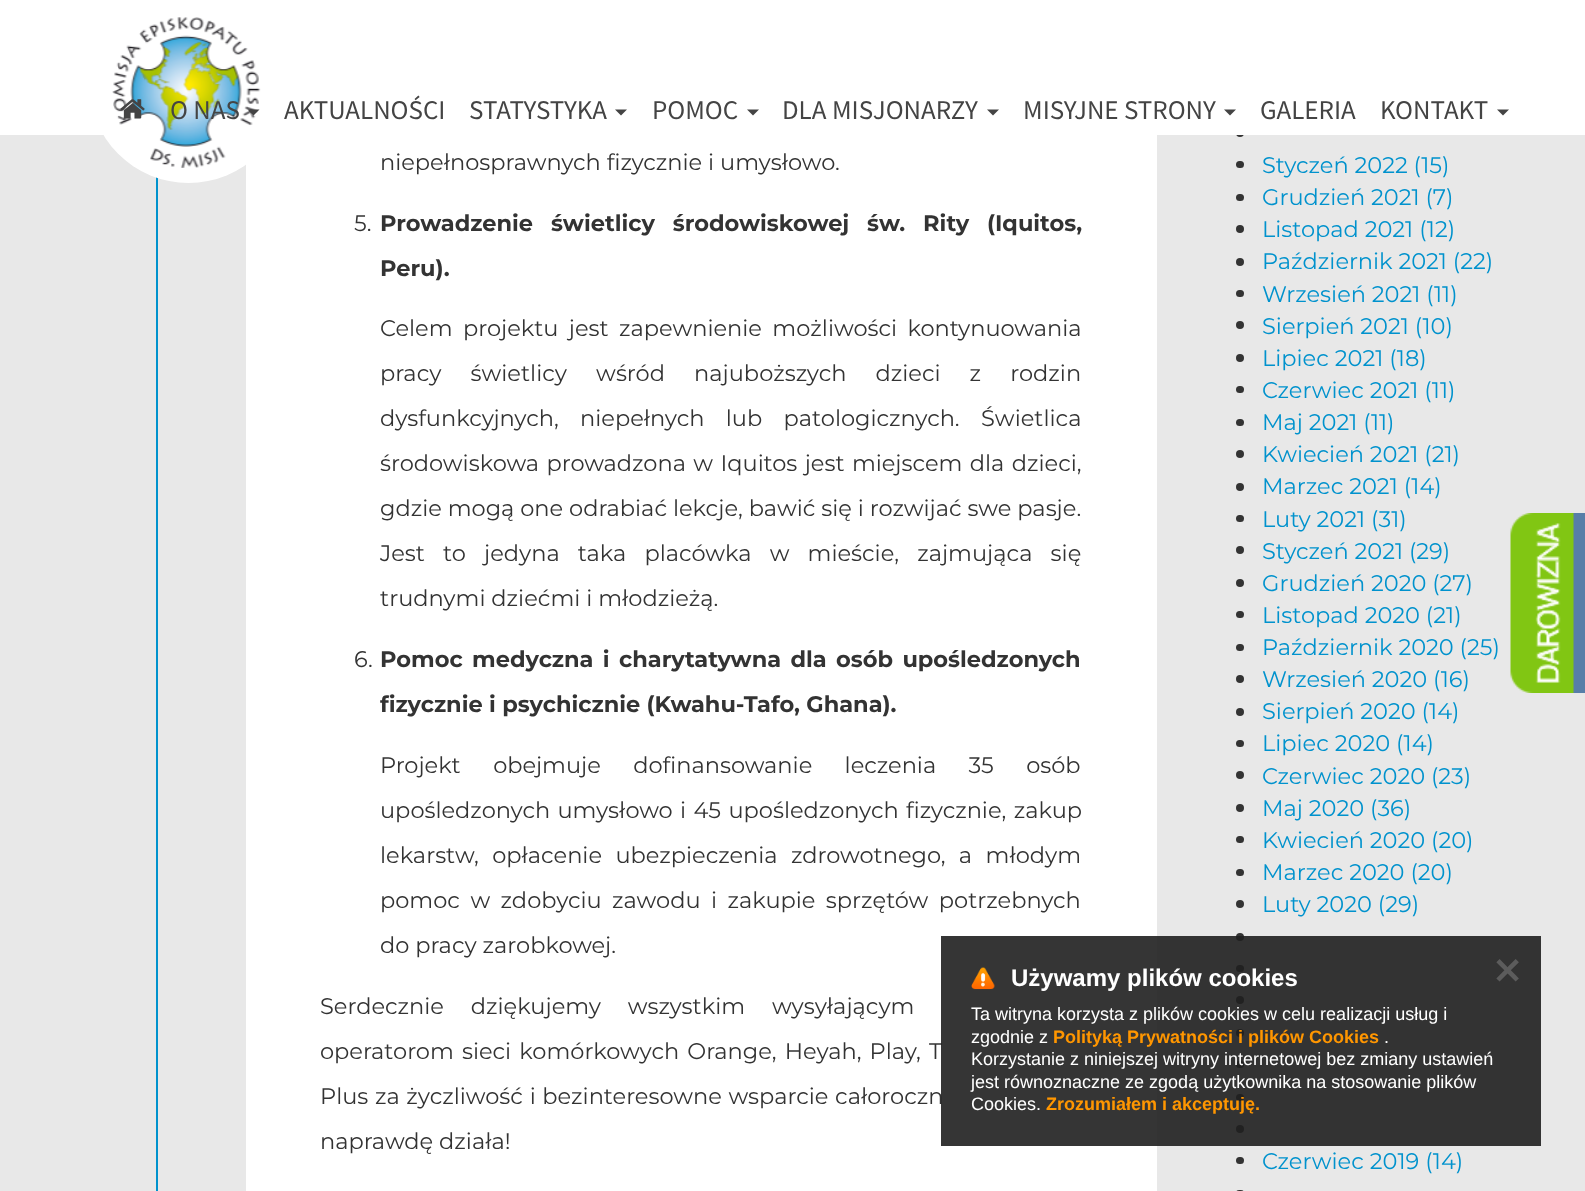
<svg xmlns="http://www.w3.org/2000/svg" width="1585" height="1191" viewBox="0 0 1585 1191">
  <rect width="100%" height="100%" fill="rgb(232,232,232)"/>
  <circle cx="1240" cy="133" r="4" fill="rgb(51,51,51)"/>
  <rect x="0" y="0" width="1585" height="135" fill="rgb(255,255,255)"/>
  <rect x="156" y="177" width="2" height="1014" fill="rgb(0,146,205)"/>
  <rect x="246" y="135" width="911" height="1056" fill="rgb(255,255,255)"/>
  <circle cx="188.5" cy="83.5" r="99.5" fill="rgb(255,255,255)"/>
  <image x="112" y="17" width="149" height="151" href="pic1.png"/>
  <image x="120" y="99" width="25" height="20" href="pic2.png"/>
  <text x="170" y="119" font-family="Source Sans Pro" font-size="27" fill="rgb(68,68,68)">O NAS</text>
  <path d="M247.5 109.5H259.5L253.5 115.5Z" fill="rgb(68,68,68)"/>
  <g font-family="Source Sans Pro" font-size="27" fill="rgb(68,68,68)">
    <text x="284" y="119">AKTUALNOŚCI</text>
    <text x="469" y="119">STATYSTYKA</text>
  </g>
  <path d="M615 109.5H627L621 115.5Z" fill="rgb(68,68,68)"/>
  <text x="652" y="119" font-family="Source Sans Pro" font-size="27" fill="rgb(68,68,68)">POMOC</text>
  <path d="M747 109.5H759L753 115.5Z" fill="rgb(68,68,68)"/>
  <text x="782" y="119" font-family="Source Sans Pro" font-size="27" fill="rgb(68,68,68)">DLA MISJONARZY</text>
  <path d="M987 109.5H999L993 115.5Z" fill="rgb(68,68,68)"/>
  <text x="1023" y="119" font-family="Source Sans Pro" font-size="27" fill="rgb(68,68,68)">MISYJNE STRONY</text>
  <path d="M1224 109.5H1236L1230 115.5Z" fill="rgb(68,68,68)"/>
  <g font-family="Source Sans Pro" font-size="27" fill="rgb(68,68,68)">
    <text x="1260" y="119">GALERIA</text>
    <text x="1380" y="119">KONTAKT</text>
  </g>
  <path d="M1497 109.5H1509L1503 115.5Z" fill="rgb(68,68,68)"/>
  <g font-family="Montserrat" font-size="22.5" fill="rgb(51,51,51)">
    <text x="380" y="170">niepełnosprawnych fizycznie i umysłowo.</text>
    <text x="354" y="231">5.</text>
  </g>
  <g font-family="Montserrat" font-size="22.5" font-weight="bold" fill="rgb(51,51,51)">
    <text x="380" y="231" word-spacing="11.5">Prowadzenie świetlicy środowiskowej św. Rity (Iquitos,</text>
    <text x="380" y="276">Peru).</text>
  </g>
  <g font-family="Montserrat" font-size="22.5" fill="rgb(51,51,51)">
    <text x="380" y="336" word-spacing="4.5">Celem projektu jest zapewnienie możliwości kontynuowania</text>
    <text x="380" y="381" word-spacing="23.25">pracy świetlicy wśród najuboższych dzieci z rodzin</text>
    <text x="380" y="426" word-spacing="15.5">dysfunkcyjnych, niepełnych lub patologicznych. Świetlica</text>
    <text x="380" y="471" word-spacing="1.5">środowiskowa prowadzona w Iquitos jest miejscem dla dzieci,</text>
    <text x="380" y="516">gdzie mogą one odrabiać lekcje, bawić się i rozwijać swe pasje.</text>
    <text x="380" y="561" word-spacing="12.25">Jest to jedyna taka placówka w mieście, zajmująca się</text>
    <text x="380" y="606">trudnymi dziećmi i młodzieżą.</text>
    <text x="354" y="667">6.</text>
  </g>
  <g font-family="Montserrat" font-size="22.5" font-weight="bold" fill="rgb(51,51,51)">
    <text x="380" y="667" word-spacing="3">Pomoc medyczna i charytatywna dla osób upośledzonych</text>
    <text x="380" y="712">fizycznie i psychicznie (Kwahu-Tafo, Ghana).</text>
  </g>
  <g font-family="Montserrat" font-size="22.5" fill="rgb(51,51,51)">
    <text x="380" y="773" word-spacing="26.5">Projekt obejmuje dofinansowanie leczenia 35 osób</text>
    <text x="380" y="818" word-spacing="1.5">upośledzonych umysłowo i 45 upośledzonych fizycznie, zakup</text>
    <text x="380" y="863" word-spacing="7.5">lekarstw, opłacenie ubezpieczenia zdrowotnego, a młodym</text>
    <text x="380" y="908" word-spacing="4.5">pomoc w zdobyciu zawodu i zakupie sprzętów potrzebnych</text>
    <text x="380" y="953">do pracy zarobkowej.</text>
    <text x="320" y="1014" word-spacing="21">Serdecznie dziękujemy wszystkim wysyłającym</text>
    <text x="320" y="1059" word-spacing="2.25">operatorom sieci komórkowych Orange, Heyah, Play, T</text>
    <text x="320" y="1104" word-spacing="0.75">Plus za życzliwość i bezinteresowne wsparcie całoroczn</text>
    <text x="320" y="1149">naprawdę działa!</text>
  </g>
  <rect x="1236" y="161" width="8" height="7" rx="3.5" fill="rgb(51,51,51)"/>
  <text x="1262" y="173" font-family="Montserrat" font-size="22.5" fill="rgb(0,146,205)">Styczeń 2022 (15)</text>
  <rect x="1236" y="194" width="8" height="7" rx="3.5" fill="rgb(51,51,51)"/>
  <text x="1262" y="205" font-family="Montserrat" font-size="22.5" fill="rgb(0,146,205)">Grudzień 2021 (7)</text>
  <circle cx="1240" cy="229" r="4" fill="rgb(51,51,51)"/>
  <text x="1262" y="237" font-family="Montserrat" font-size="22.5" fill="rgb(0,146,205)">Listopad 2021 (12)</text>
  <circle cx="1240" cy="262" r="4" fill="rgb(51,51,51)"/>
  <text x="1262" y="269" font-family="Montserrat" font-size="22.5" fill="rgb(0,146,205)">Październik 2021 (22)</text>
  <rect x="1236" y="290" width="8" height="7" rx="3.5" fill="rgb(51,51,51)"/>
  <text x="1262" y="302" font-family="Montserrat" font-size="22.5" fill="rgb(0,146,205)">Wrzesień 2021 (11)</text>
  <circle cx="1240" cy="325" r="4" fill="rgb(51,51,51)"/>
  <text x="1262" y="334" font-family="Montserrat" font-size="22.5" fill="rgb(0,146,205)">Sierpień 2021 (10)</text>
  <circle cx="1240" cy="358" r="4" fill="rgb(51,51,51)"/>
  <text x="1262" y="366" font-family="Montserrat" font-size="22.5" fill="rgb(0,146,205)">Lipiec 2021 (18)</text>
  <rect x="1236" y="386" width="8" height="7" rx="3.5" fill="rgb(51,51,51)"/>
  <text x="1262" y="398" font-family="Montserrat" font-size="22.5" fill="rgb(0,146,205)">Czerwiec 2021 (11)</text>
  <rect x="1236" y="419" width="8" height="7" rx="3.5" fill="rgb(51,51,51)"/>
  <text x="1262" y="430" font-family="Montserrat" font-size="22.5" fill="rgb(0,146,205)">Maj 2021 (11)</text>
  <circle cx="1240" cy="454" r="4" fill="rgb(51,51,51)"/>
  <text x="1262" y="462" font-family="Montserrat" font-size="22.5" fill="rgb(0,146,205)">Kwiecień 2021 (21)</text>
  <circle cx="1240" cy="487" r="4" fill="rgb(51,51,51)"/>
  <text x="1262" y="494" font-family="Montserrat" font-size="22.5" fill="rgb(0,146,205)">Marzec 2021 (14)</text>
  <rect x="1236" y="515" width="8" height="7" rx="3.5" fill="rgb(51,51,51)"/>
  <text x="1262" y="527" font-family="Montserrat" font-size="22.5" fill="rgb(0,146,205)">Luty 2021 (31)</text>
  <circle cx="1240" cy="550" r="4" fill="rgb(51,51,51)"/>
  <text x="1262" y="559" font-family="Montserrat" font-size="22.5" fill="rgb(0,146,205)">Styczeń 2021 (29)</text>
  <circle cx="1240" cy="583" r="4" fill="rgb(51,51,51)"/>
  <text x="1262" y="591" font-family="Montserrat" font-size="22.5" fill="rgb(0,146,205)">Grudzień 2020 (27)</text>
  <rect x="1236" y="611" width="8" height="7" rx="3.5" fill="rgb(51,51,51)"/>
  <text x="1262" y="623" font-family="Montserrat" font-size="22.5" fill="rgb(0,146,205)">Listopad 2020 (21)</text>
  <rect x="1236" y="644" width="8" height="7" rx="3.5" fill="rgb(51,51,51)"/>
  <text x="1262" y="655" font-family="Montserrat" font-size="22.5" fill="rgb(0,146,205)">Październik 2020 (25)</text>
  <circle cx="1240" cy="679" r="4" fill="rgb(51,51,51)"/>
  <text x="1262" y="687" font-family="Montserrat" font-size="22.5" fill="rgb(0,146,205)">Wrzesień 2020 (16)</text>
  <circle cx="1240" cy="712" r="4" fill="rgb(51,51,51)"/>
  <text x="1262" y="719" font-family="Montserrat" font-size="22.5" fill="rgb(0,146,205)">Sierpień 2020 (14)</text>
  <rect x="1236" y="740" width="8" height="7" rx="3.5" fill="rgb(51,51,51)"/>
  <text x="1262" y="751" font-family="Montserrat" font-size="22.5" fill="rgb(0,146,205)">Lipiec 2020 (14)</text>
  <circle cx="1240" cy="775" r="4" fill="rgb(51,51,51)"/>
  <text x="1262" y="784" font-family="Montserrat" font-size="22.5" fill="rgb(0,146,205)">Czerwiec 2020 (23)</text>
  <circle cx="1240" cy="808" r="4" fill="rgb(51,51,51)"/>
  <text x="1262" y="816" font-family="Montserrat" font-size="22.5" fill="rgb(0,146,205)">Maj 2020 (36)</text>
  <rect x="1236" y="836" width="8" height="7" rx="3.5" fill="rgb(51,51,51)"/>
  <text x="1262" y="848" font-family="Montserrat" font-size="22.5" fill="rgb(0,146,205)">Kwiecień 2020 (20)</text>
  <rect x="1236" y="869" width="8" height="7" rx="3.5" fill="rgb(51,51,51)"/>
  <text x="1262" y="880" font-family="Montserrat" font-size="22.5" fill="rgb(0,146,205)">Marzec 2020 (20)</text>
  <circle cx="1240" cy="904" r="4" fill="rgb(51,51,51)"/>
  <text x="1262" y="912" font-family="Montserrat" font-size="22.5" fill="rgb(0,146,205)">Luty 2020 (29)</text>
  <circle cx="1240" cy="937" r="4" fill="rgb(51,51,51)"/>
  <rect x="1236" y="965" width="8" height="7" rx="3.5" fill="rgb(51,51,51)"/>
  <circle cx="1240" cy="1000" r="4" fill="rgb(51,51,51)"/>
  <circle cx="1240" cy="1033" r="4" fill="rgb(51,51,51)"/>
  <rect x="1236" y="1061" width="8" height="7" rx="3.5" fill="rgb(51,51,51)"/>
  <rect x="1236" y="1094" width="8" height="7" rx="3.5" fill="rgb(51,51,51)"/>
  <circle cx="1240" cy="1129" r="4" fill="rgb(51,51,51)"/>
  <rect x="1236" y="1157" width="8" height="7" rx="3.5" fill="rgb(51,51,51)"/>
  <text x="1262" y="1169" font-family="Montserrat" font-size="22.5" fill="rgb(0,146,205)">Czerwiec 2019 (14)</text>
  <rect x="1236" y="1190" width="8" height="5" rx="3.5" fill="rgb(51,51,51)"/>
  <image x="1510" y="513" width="75" height="180" href="pic3.png"/>
  <rect x="941" y="936" width="600" height="210" fill="rgba(31,31,31,0.9)"/>
  <image x="971" y="967" width="24" height="23" href="pic4.png"/>
  <text x="1011" y="986" font-family="Liberation Sans" font-size="24" font-weight="bold" fill="rgb(255,255,255)">Używamy plików cookies</text>
  <text x="1492" y="984" font-family="DejaVu Sans" font-size="36" font-weight="bold" fill="rgb(92,92,92)">✕</text>
  <g font-family="Liberation Sans" font-size="18" fill="rgb(255,255,255)">
    <text>
      <tspan x="971" y="1020">Ta witryna korzysta z plików cookies w celu realizacji usług i</tspan>
      <tspan x="971" y="1043">zgodnie z</tspan>
    </text>
  </g>
  <text x="1053" y="1043" font-family="Liberation Sans" font-size="18" font-weight="bold" fill="rgb(255,150,0)">Polityką Prywatności i plików Cookies</text>
  <g font-family="Liberation Sans" font-size="18" fill="rgb(255,255,255)">
    <text x="1384" y="1043">.</text>
    <text>
      <tspan x="971" y="1065">Korzystanie z niniejszej witryny internetowej bez zmiany ustawień</tspan>
      <tspan x="971" y="1088">jest równoznaczne ze zgodą użytkownika na stosowanie plików</tspan>
      <tspan x="971" y="1110">Cookies.</tspan>
    </text>
  </g>
  <text x="1046" y="1110" font-family="Liberation Sans" font-size="18" font-weight="bold" fill="rgb(255,150,0)">Zrozumiałem i akceptuję.</text>
</svg>
